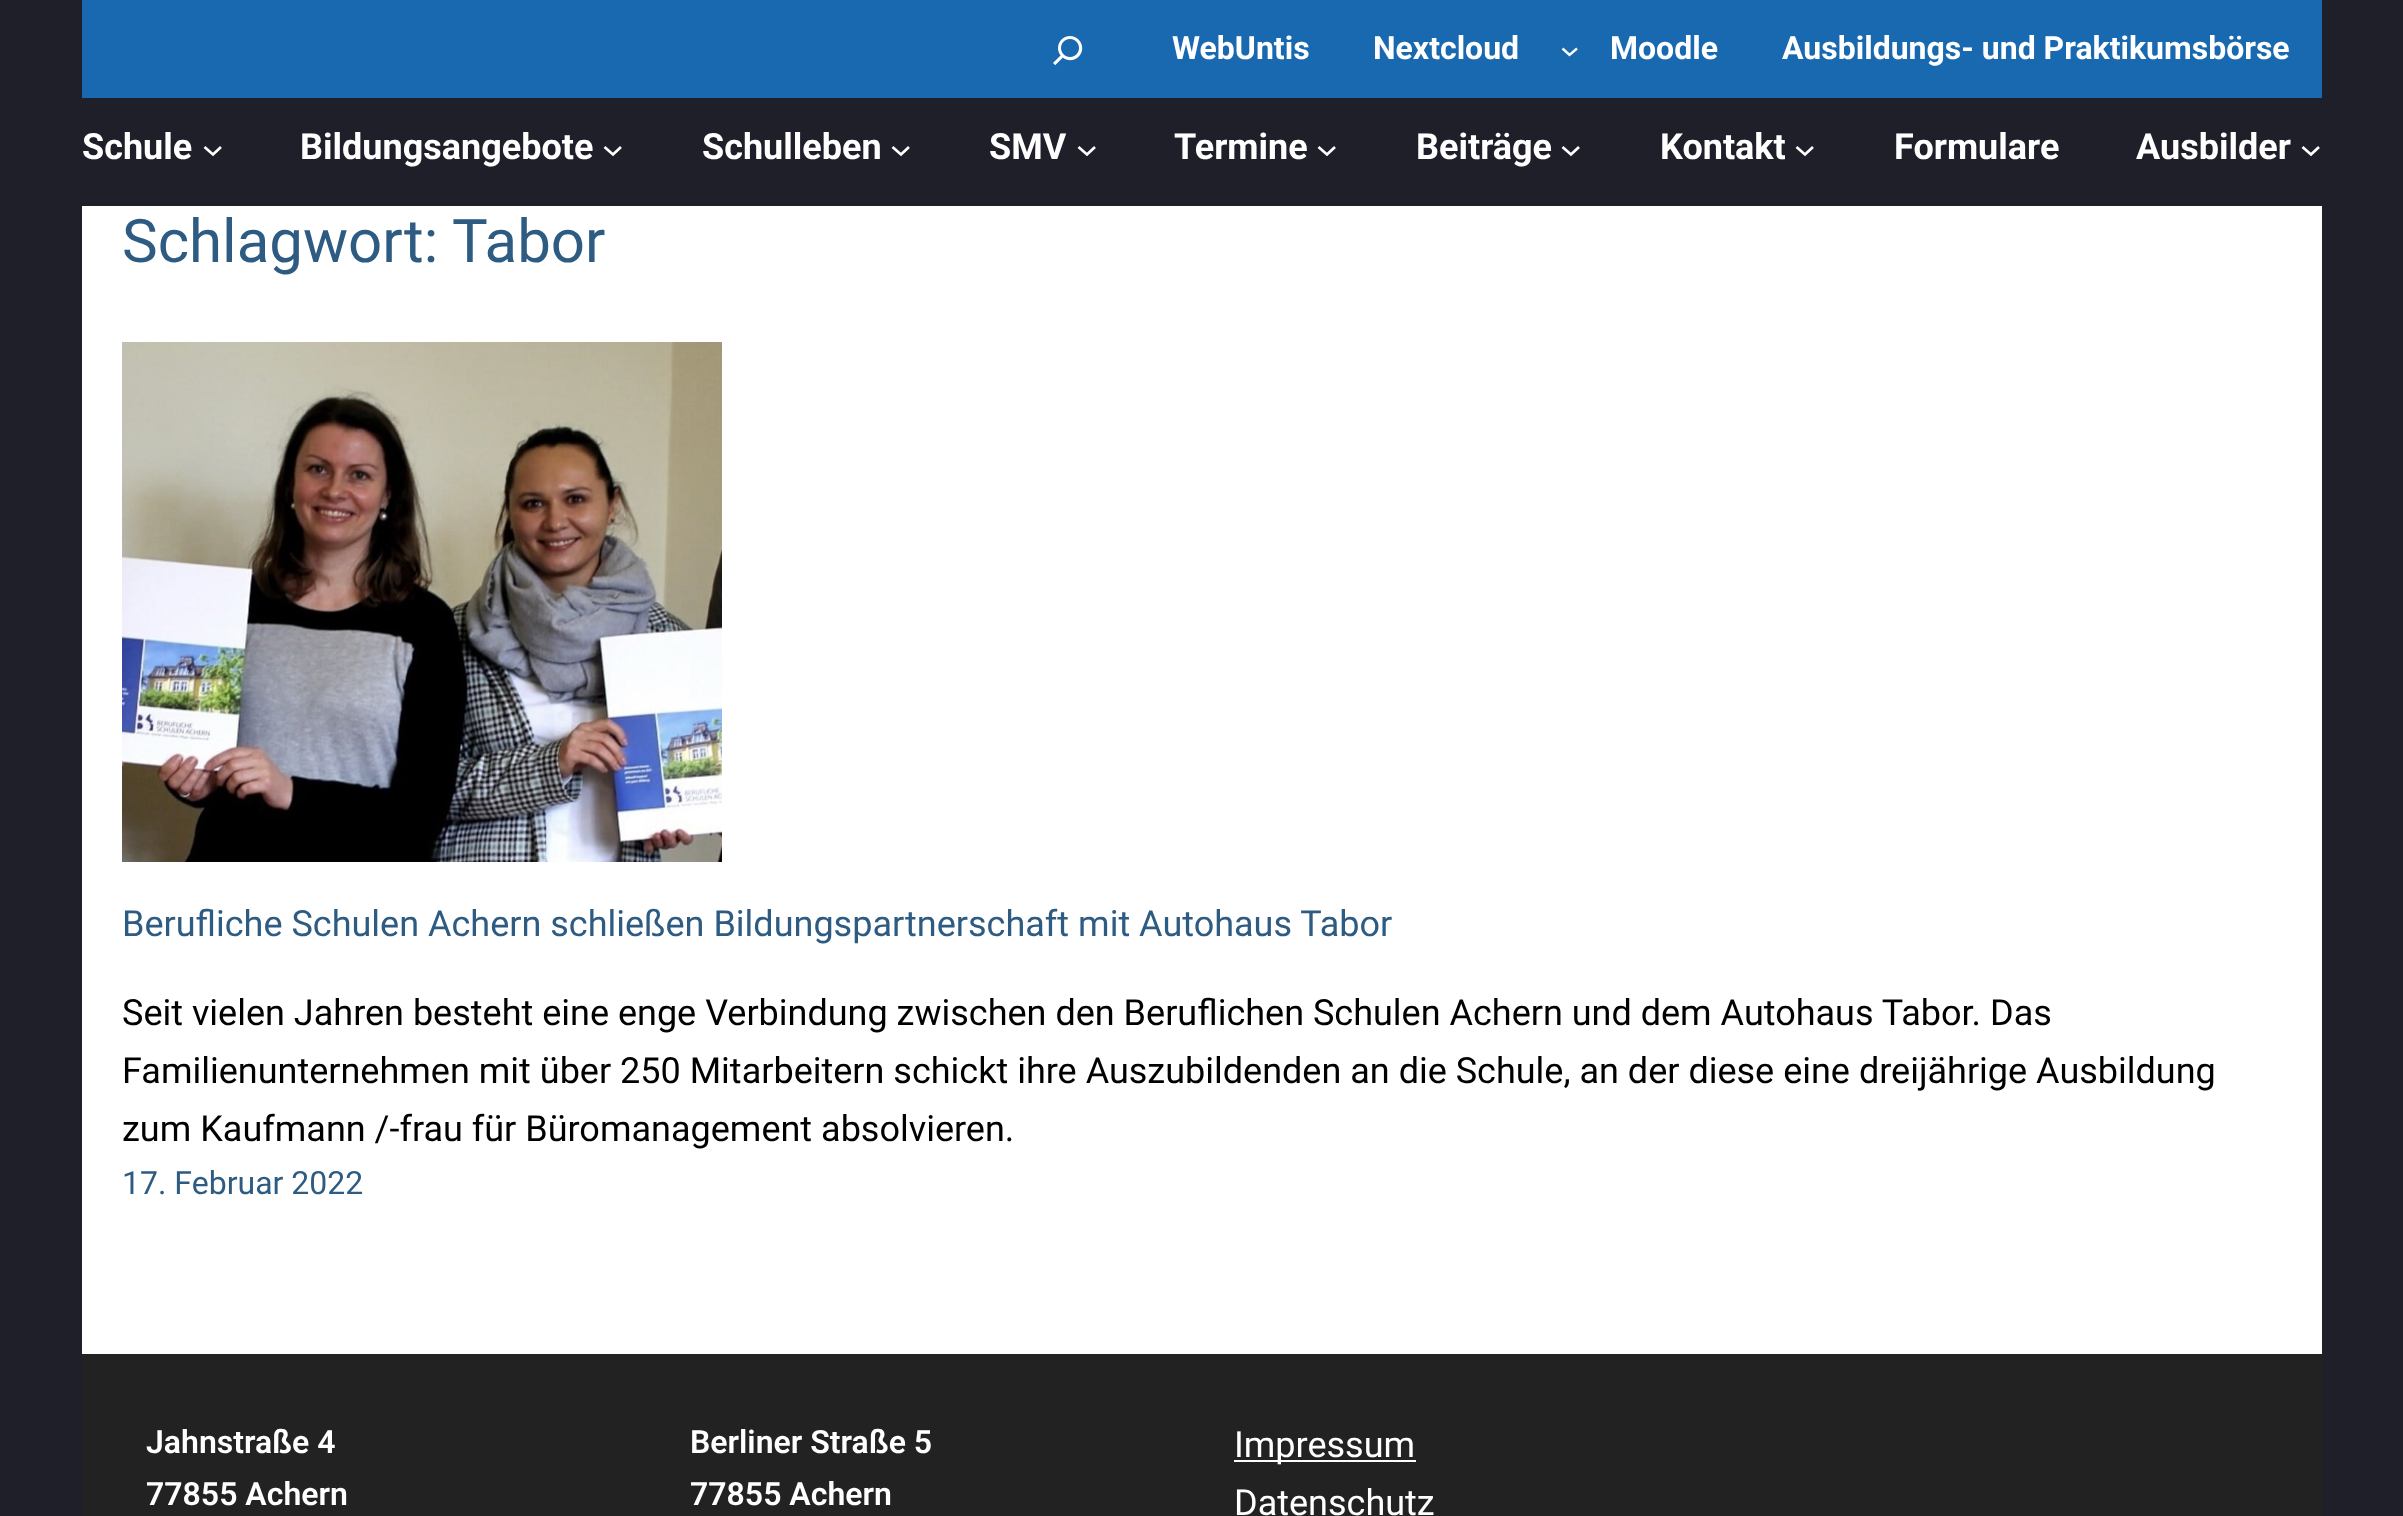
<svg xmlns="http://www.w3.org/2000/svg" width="2403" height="1516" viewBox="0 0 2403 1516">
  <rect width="100%" height="100%" fill="rgb(31,31,42)"/>
  <rect x="82" y="0" width="2240" height="98" fill="rgb(24,105,176)"/>
  <image x="1053" y="36" width="30" height="30" href="pic1.png"/>
  <g font-family="Roboto" font-size="32" font-weight="bold" fill="rgb(255,255,255)">
    <text x="1172" y="59">WebUntis</text>
    <text x="1373" y="59">Nextcloud</text>
  </g>
  <path d="M1562.5 48.5L1569.5 55L1577 48.5" fill="none" stroke="rgb(255,255,255)" stroke-width="2.4"/>
  <g font-family="Roboto" font-size="32" font-weight="bold" fill="rgb(255,255,255)">
    <text x="1610" y="59">Moodle</text>
    <text x="1782" y="59">Ausbildungs- und Praktikumsbörse</text>
  </g>
  <text x="82" y="159" font-family="Roboto" font-size="36" font-weight="bold" fill="rgb(255,255,255)">Schule</text>
  <path d="M204.5 147L213 154.5L221 147" fill="none" stroke="rgb(255,255,255)" stroke-width="2.7"/>
  <text x="300" y="159" font-family="Roboto" font-size="36" font-weight="bold" fill="rgb(255,255,255)">Bildungsangebote</text>
  <path d="M604.5 147L613 154.5L621 147" fill="none" stroke="rgb(255,255,255)" stroke-width="2.7"/>
  <text x="702" y="159" font-family="Roboto" font-size="36" font-weight="bold" fill="rgb(255,255,255)">Schulleben</text>
  <path d="M892.5 147L901 154.5L909 147" fill="none" stroke="rgb(255,255,255)" stroke-width="2.7"/>
  <text x="989" y="159" font-family="Roboto" font-size="36" font-weight="bold" fill="rgb(255,255,255)">SMV</text>
  <path d="M1078.5 147L1087 154.5L1095 147" fill="none" stroke="rgb(255,255,255)" stroke-width="2.7"/>
  <text x="1174" y="159" font-family="Roboto" font-size="36" font-weight="bold" fill="rgb(255,255,255)">Termine</text>
  <path d="M1318.5 147L1327 154.5L1335 147" fill="none" stroke="rgb(255,255,255)" stroke-width="2.7"/>
  <text x="1416" y="159" font-family="Roboto" font-size="36" font-weight="bold" fill="rgb(255,255,255)">Beiträge</text>
  <path d="M1562.5 147L1571 154.5L1579 147" fill="none" stroke="rgb(255,255,255)" stroke-width="2.7"/>
  <text x="1660" y="159" font-family="Roboto" font-size="36" font-weight="bold" fill="rgb(255,255,255)">Kontakt</text>
  <path d="M1796.5 147L1805 154.5L1813 147" fill="none" stroke="rgb(255,255,255)" stroke-width="2.7"/>
  <g font-family="Roboto" font-size="36" font-weight="bold" fill="rgb(255,255,255)">
    <text x="1894" y="159">Formulare</text>
    <text x="2136" y="159">Ausbilder</text>
  </g>
  <path d="M2302.5 147L2311 154.5L2319 147" fill="none" stroke="rgb(255,255,255)" stroke-width="2.7"/>
  <rect x="82" y="206" width="2240" height="1148" fill="rgb(255,255,255)"/>
  <g font-family="Roboto" font-size="60" fill="rgb(46,91,130)">
    <text x="122" y="262">Schlagwort:</text>
    <text x="452" y="262">Tabor</text>
  </g>
  <image x="122" y="342" width="600" height="520" href="pic2.png"/>
  <text x="122" y="936" font-family="Roboto" font-size="36" fill="rgb(46,91,130)">Berufliche Schulen Achern schließen Bildungspartnerschaft mit Autohaus Tabor</text>
  <g font-family="Roboto" font-size="36" fill="rgb(0,0,0)">
    <text>
      <tspan x="122" y="1025">Seit vielen Jahren besteht eine enge Verbindung zwischen den Beruflichen Schulen Achern und dem Autohaus Tabor. Das</tspan>
      <tspan x="122" y="1083">Familienunternehmen mit über 250 Mitarbeitern schickt ihre Auszubildenden an die Schule, an der diese eine dreijährige Ausbildung</tspan>
      <tspan x="122" y="1141">zum Kaufmann /-frau für Büromanagement absolvieren.</tspan>
    </text>
  </g>
  <text x="122" y="1194" font-family="Roboto" font-size="32" fill="rgb(46,91,130)">17. Februar 2022</text>
  <rect x="82" y="1354" width="2240" height="162" fill="rgb(34,34,34)"/>
  <g font-family="Roboto" font-size="32" font-weight="600" fill="rgb(255,255,255)">
    <text>
      <tspan x="146" y="1453">Jahnstraße 4</tspan>
      <tspan x="146" y="1505">77855 Achern</tspan>
    </text>
    <text>
      <tspan x="690" y="1453">Berliner Straße 5</tspan>
      <tspan x="690" y="1505">77855 Achern</tspan>
    </text>
  </g>
  <rect x="1234" y="1460" width="182" height="2" fill="rgb(255,255,255)"/>
  <g font-family="Roboto" font-size="36" fill="rgb(255,255,255)">
    <text>
      <tspan x="1234" y="1457">Impressum</tspan>
      <tspan x="1234" y="1515">Datenschutz</tspan>
    </text>
  </g>
</svg>
